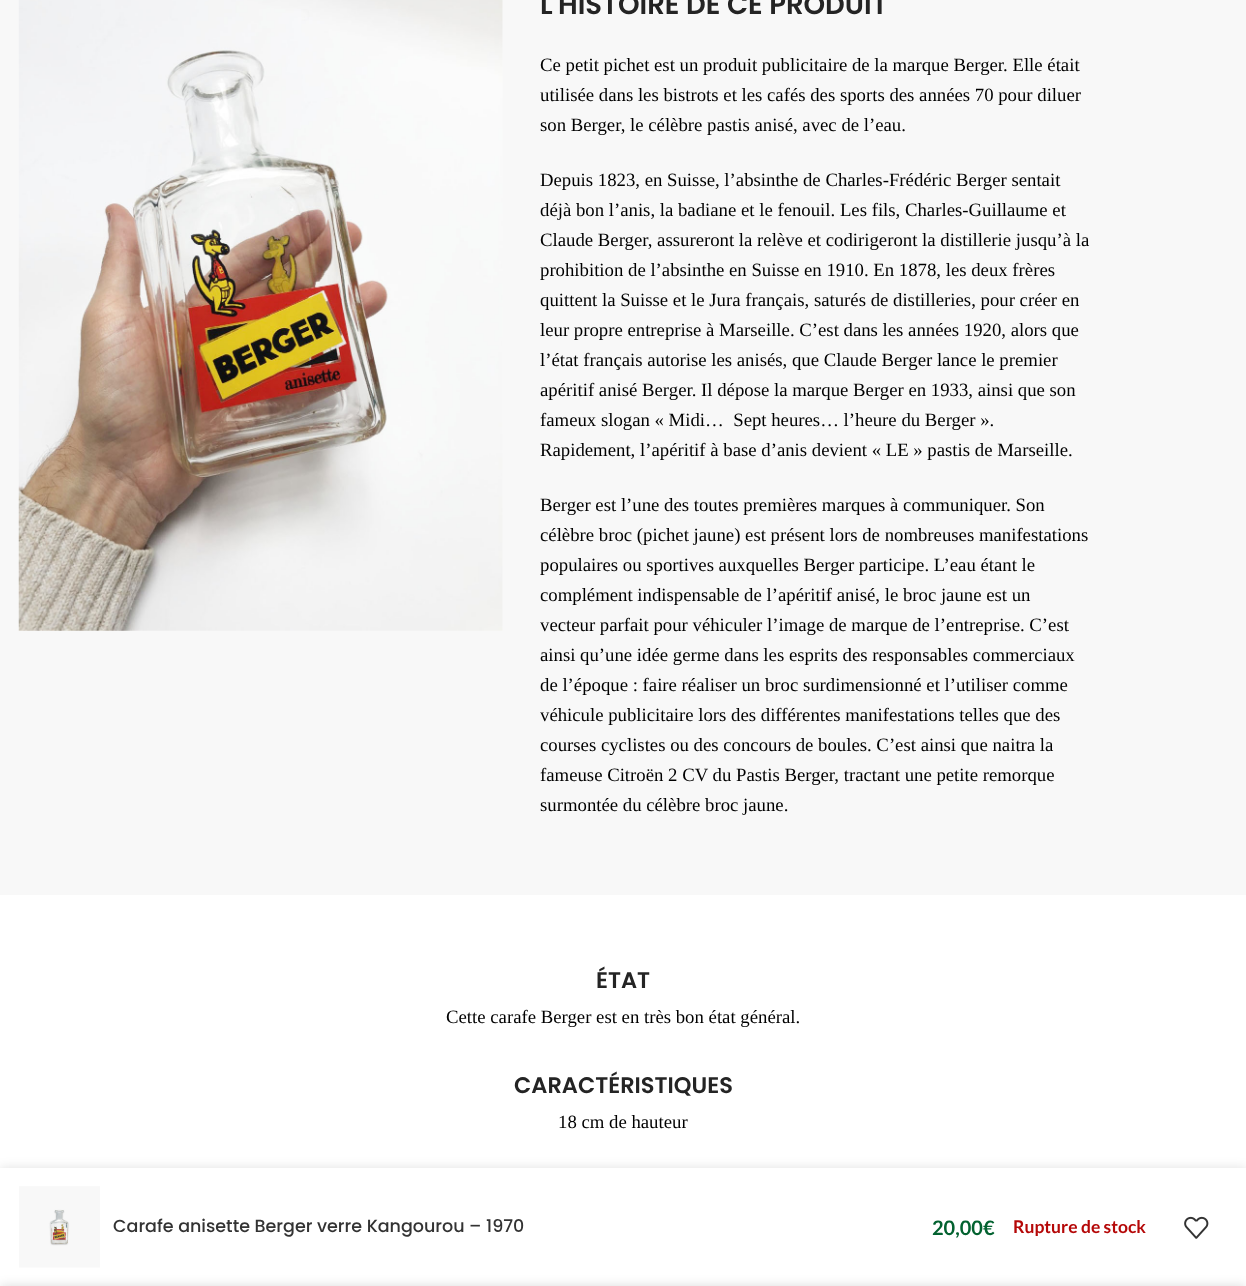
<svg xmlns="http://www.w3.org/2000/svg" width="1246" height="1286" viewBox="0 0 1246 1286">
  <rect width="100%" height="100%" fill="rgb(255,255,255)"/>
  <rect x="0" y="0" width="1246" height="895" fill="rgb(248,248,248)"/>
  <image x="18" y="0" width="485" height="631" href="pic1.png"/>
  <text x="540" y="14" font-family="Poppins" font-size="27.5" font-weight="600" fill="rgb(36,36,36)">L'HISTOIRE DE CE PRODUIT</text>
  <g font-family="Liberation Serif" font-size="18.75" fill="rgb(0,0,0)">
    <text>
      <tspan x="540" y="71">Ce petit pichet est un produit publicitaire de la marque Berger. Elle était</tspan>
      <tspan x="540" y="101">utilisée dans les bistrots et les cafés des sports des années 70 pour diluer</tspan>
      <tspan x="540" y="131">son Berger, le célèbre pastis anisé, avec de l’eau.</tspan>
    </text>
    <text xml:space="preserve"><tspan x="540" y="186">Depuis 1823, en Suisse, l’absinthe de Charles-Frédéric Berger sentait</tspan><tspan x="540" y="216">déjà bon l’anis, la badiane et le fenouil. Les fils, Charles-Guillaume et</tspan><tspan x="540" y="246">Claude Berger, assureront la relève et codirigeront la distillerie jusqu’à la</tspan><tspan x="540" y="276">prohibition de l’absinthe en Suisse en 1910. En 1878, les deux frères</tspan><tspan x="540" y="306">quittent la Suisse et le Jura français, saturés de distilleries, pour créer en</tspan><tspan x="540" y="336">leur propre entreprise à Marseille. C’est dans les années 1920, alors que</tspan><tspan x="540" y="366">l’état français autorise les anisés, que Claude Berger lance le premier</tspan><tspan x="540" y="396">apéritif anisé Berger. Il dépose la marque Berger en 1933, ainsi que son</tspan><tspan x="540" y="426">fameux slogan « Midi…  Sept heures… l’heure du Berger ».</tspan><tspan x="540" y="456">Rapidement, l’apéritif à base d’anis devient « LE » pastis de Marseille.</tspan></text>
    <text>
      <tspan x="540" y="511">Berger est l’une des toutes premières marques à communiquer. Son</tspan>
      <tspan x="540" y="541">célèbre broc (pichet jaune) est présent lors de nombreuses manifestations</tspan>
      <tspan x="540" y="571">populaires ou sportives auxquelles Berger participe. L’eau étant le</tspan>
      <tspan x="540" y="601">complément indispensable de l’apéritif anisé, le broc jaune est un</tspan>
      <tspan x="540" y="631">vecteur parfait pour véhiculer l’image de marque de l’entreprise. C’est</tspan>
      <tspan x="540" y="661">ainsi qu’une idée germe dans les esprits des responsables commerciaux</tspan>
      <tspan x="540" y="691">de l’époque : faire réaliser un broc surdimensionné et l’utiliser comme</tspan>
      <tspan x="540" y="721">véhicule publicitaire lors des différentes manifestations telles que des</tspan>
      <tspan x="540" y="751">courses cyclistes ou des concours de boules. C’est ainsi que naitra la</tspan>
      <tspan x="540" y="781">fameuse Citroën 2 CV du Pastis Berger, tractant une petite remorque</tspan>
      <tspan x="540" y="811">surmontée du célèbre broc jaune.</tspan>
    </text>
  </g>
  <text x="596" y="988" font-family="Poppins" font-size="22.5" font-weight="600" fill="rgb(36,36,36)">ÉTAT</text>
  <text x="446" y="1023" font-family="Liberation Serif" font-size="18.75" fill="rgb(0,0,0)">Cette carafe Berger est en très bon état général.</text>
  <text x="514" y="1093" font-family="Poppins" font-size="22.5" font-weight="600" fill="rgb(36,36,36)">CARACTÉRISTIQUES</text>
  <text x="558" y="1128" font-family="Liberation Serif" font-size="18.75" fill="rgb(0,0,0)">18 cm de hauteur</text>
  <rect x="0" y="1168" width="1246" height="118" fill="rgba(0,0,0,0.12)" filter="blur(5.5px)"/>
  <rect x="0" y="1168" width="1246" height="118" fill="rgb(255,255,255)"/>
  <image x="19" y="1186" width="81" height="82" href="pic2.png"/>
  <text x="113" y="1232" font-family="Poppins" font-size="17.5" font-weight="500" fill="rgb(51,51,51)">Carafe anisette Berger verre Kangourou – 1970</text>
  <text x="932" y="1235" font-family="Lato" font-size="20" font-weight="bold" fill="rgb(3,98,48)">20,00€</text>
  <text x="1013" y="1233" font-family="Lato" font-size="17.5" font-weight="bold" fill="rgb(181,8,8)">Rupture de stock</text>
  <image x="1184" y="1216" width="25" height="23" href="pic3.png"/>
  <rect x="0" y="1286" width="1246" height="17" fill="rgba(0,0,0,0.14)" filter="blur(5.5px)"/>
</svg>
